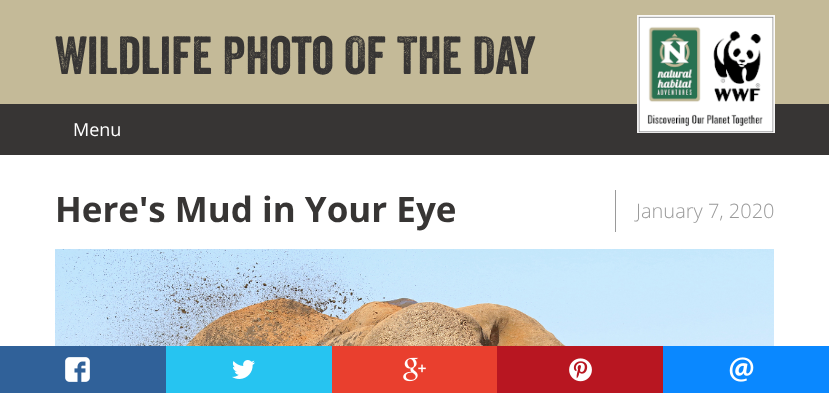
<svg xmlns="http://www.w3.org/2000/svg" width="829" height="393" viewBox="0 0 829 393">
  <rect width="100%" height="100%" fill="rgb(55,53,52)"/>
  <rect x="0" y="0" width="829" height="104" fill="rgb(196,186,152)"/>
  <text x="55" y="74" font-family="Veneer" font-size="52" fill="rgb(55,53,52)">Wildlife Photo Of The Day</text>
  <image x="637" y="15" width="138" height="118" href="pic1.png"/>
  <text x="73" y="136" font-family="Open Sans" font-size="18" fill="rgb(255,255,255)">Menu</text>
  <rect x="0" y="155" width="829" height="191" fill="rgb(255,255,255)"/>
  <text x="55" y="222" font-family="Open Sans" font-size="35" font-weight="bold" fill="rgb(55,53,52)">Here's Mud in Your Eye</text>
  <rect x="615" y="190" width="1" height="42" fill="rgb(154,154,154)"/>
  <text x="636" y="218" font-family="Open Sans" font-size="20" font-weight="300" fill="rgb(154,154,154)">January 7, 2020</text>
  <image x="55" y="249" width="719" height="97" href="pic2.png"/>
  <rect x="0" y="346" width="166" height="47" fill="rgb(48,97,153)"/>
  <image x="65" y="357" width="25" height="25" href="pic3.png"/>
  <rect x="166" y="346" width="166" height="47" fill="rgb(38,196,241)"/>
  <image x="232" y="360" width="23" height="19" href="pic4.png"/>
  <rect x="332" y="346" width="165" height="47" fill="rgb(233,63,46)"/>
  <image x="403" y="357" width="23" height="25" href="pic5.png"/>
  <rect x="497" y="346" width="166" height="47" fill="rgb(184,22,33)"/>
  <image x="569" y="358" width="23" height="24" href="pic6.png"/>
  <rect x="663" y="346" width="166" height="47" fill="rgb(10,136,255)"/>
  <image x="729" y="357" width="25" height="25" href="pic7.png"/>
</svg>
